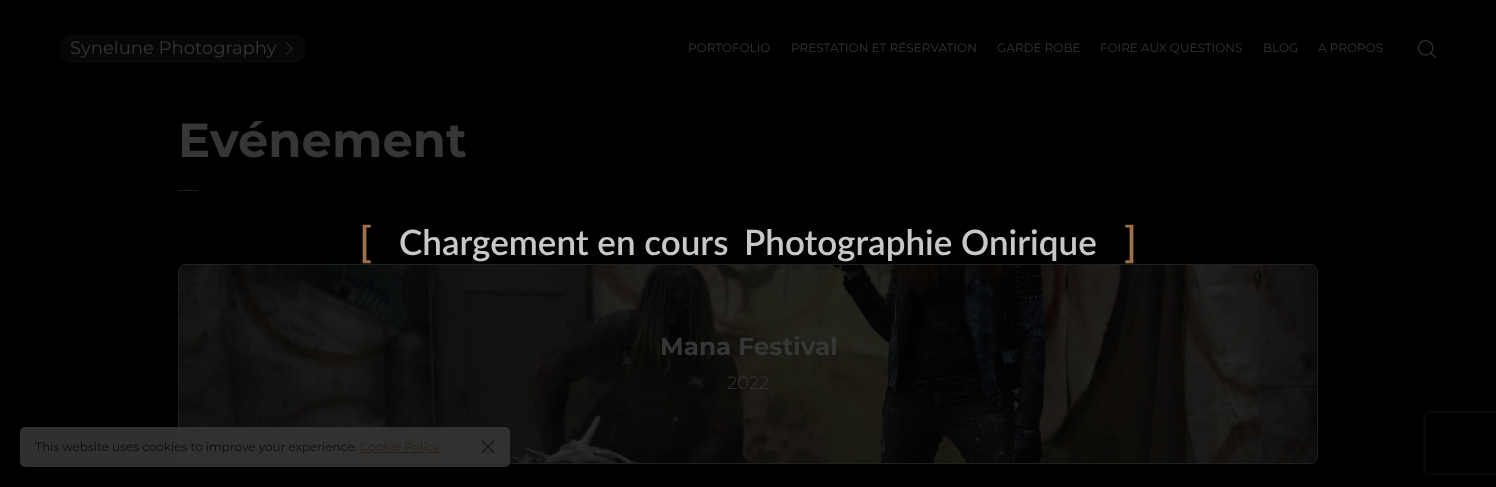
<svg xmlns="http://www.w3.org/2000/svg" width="1496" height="487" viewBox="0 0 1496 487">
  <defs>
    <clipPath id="clip1"><path d="M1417 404H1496V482H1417ZM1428 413H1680C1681 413 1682 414 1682 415V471C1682 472 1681 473 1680 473H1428C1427 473 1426 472 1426 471V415C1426 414 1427 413 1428 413Z" clip-rule="evenodd"/></clipPath>
  </defs>
  <rect width="100%" height="100%" fill="rgb(0,0,0)"/>
  <rect x="60" y="34" width="246" height="29" rx="12" fill="rgb(7,7,7)"/>
  <text x="70" y="54" font-family="Montserrat" font-size="18" fill="rgb(54,54,54)">Synelune Photography</text>
  <image x="286" y="42" width="7" height="13" href="pic1.png"/>
  <g font-family="Montserrat" font-size="12" fill="rgb(54,54,54)">
    <text x="688" y="52">PORTOFOLIO</text>
    <text x="791" y="52">PRESTATION ET RÉSERVATION</text>
    <text x="997" y="52">GARDE ROBE</text>
    <text x="1100" y="52">FOIRE AUX QUESTIONS</text>
    <text x="1263" y="52">BLOG</text>
    <text x="1318" y="52">A PROPOS</text>
  </g>
  <image x="1418" y="40" width="18" height="19" href="pic2.png"/>
  <text x="178" y="157" font-family="Montserrat" font-size="48" font-weight="bold" fill="rgb(54,54,54)">Evénement</text>
  <rect x="178" y="190" width="20" height="1" fill="rgb(41,30,18)"/>
  <image x="179" y="264" width="1138" height="200" href="pic3.png"/>
  <rect x="178.5" y="264.5" width="1139" height="199" rx="7.5" fill="none" stroke="rgb(32,32,32)"/>
  <text x="660" y="355" font-family="Montserrat" font-size="24.75" font-weight="bold" fill="rgb(54,54,54)">Mana Festival</text>
  <text x="727" y="389" font-family="Montserrat" font-size="18" font-weight="300" fill="rgb(54,54,54)">2022</text>
  <text x="359" y="257" font-family="Lato" font-size="42" font-weight="600" fill="rgb(154,112,68)">[</text>
  <g font-family="Lato" font-size="35" font-weight="600" fill="rgb(200,200,200)">
    <text x="399" y="255">Chargement en cours</text>
    <text x="744" y="255">Photographie Onirique</text>
  </g>
  <text x="1124" y="257" font-family="Lato" font-size="42" font-weight="600" fill="rgb(154,112,68)">]</text>
  <rect x="20" y="427" width="490" height="40" rx="5" fill="rgba(53,53,53,0.9)"/>
  <text x="35" y="451" font-family="Montserrat" font-size="12" fill="rgb(13,11,10)">This website uses cookies to improve your experience.</text>
  <rect x="360" y="452" width="80" height="1" fill="rgb(41,30,18)"/>
  <text x="360" y="451" font-family="Montserrat" font-size="12" fill="rgb(41,30,18)">Cookie Policy</text>
  <image x="481" y="440" width="14" height="14" href="pic4.png"/>
  <g clip-path="url(#clip1)">
    <rect x="1426" y="413" width="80" height="60" rx="2" fill="rgb(27,27,27)" filter="blur(2.5px)"/>
  </g>
</svg>
